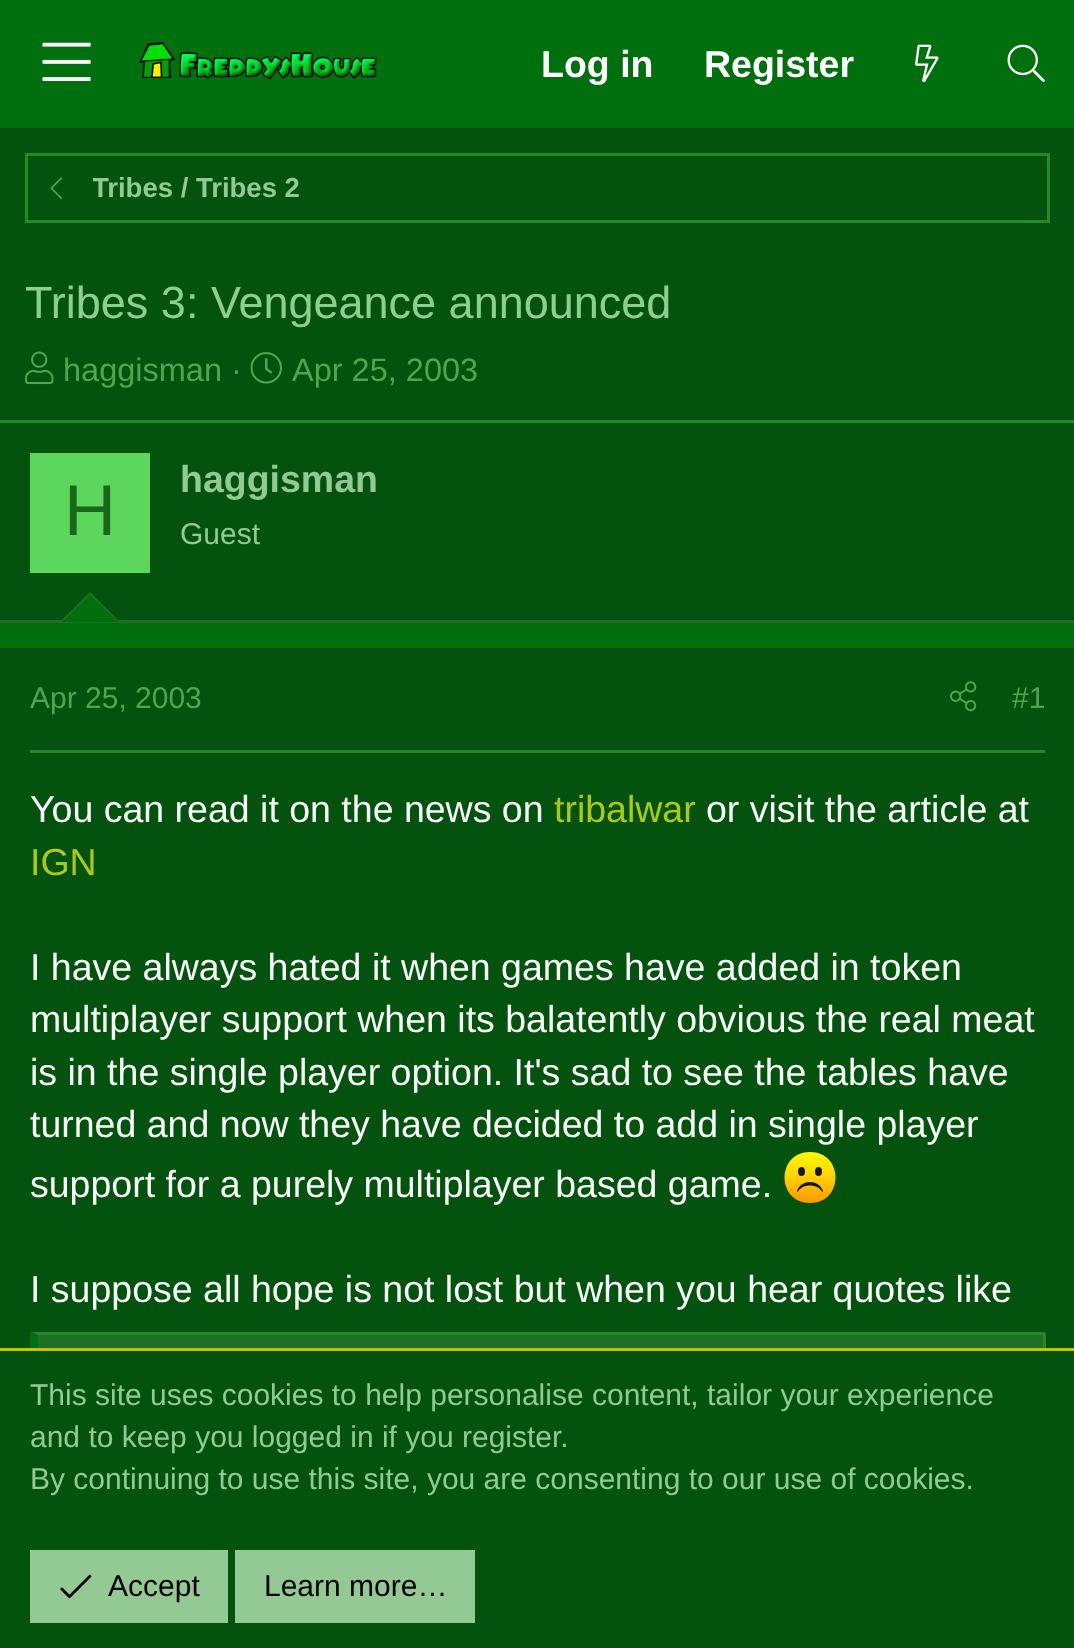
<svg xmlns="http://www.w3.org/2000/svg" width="1074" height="1648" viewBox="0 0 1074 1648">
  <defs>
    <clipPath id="clip1"><rect x="93" y="168" width="207" height="40"/></clipPath>
    <linearGradient id="g1" gradientUnits="userSpaceOnUse" x1="810" y1="1203" x2="810" y2="1152"><stop offset="0" stop-color="rgb(255,149,0)"/><stop offset="0.19" stop-color="rgb(255,173,0)"/><stop offset="0.55" stop-color="rgb(255,213,0)"/><stop offset="0.83" stop-color="rgb(255,237,0)"/><stop offset="1" stop-color="rgb(255,246,0)"/></linearGradient>
  </defs>
  <rect width="100%" height="100%" fill="rgb(3,82,14)"/>
  <rect x="0" y="0" width="1074" height="128" fill="rgb(0,111,13)"/>
  <image x="42" y="42" width="49" height="39" href="pic1.png"/>
  <image x="139" y="42" width="238" height="38" href="pic2.png"/>
  <g font-family="Liberation Sans" font-size="37.5" font-weight="bold" fill="rgb(255,255,255)">
    <text x="541" y="77">Log in</text>
    <text x="704" y="77">Register</text>
  </g>
  <image x="915" y="44" width="24" height="39" href="pic3.png"/>
  <image x="1007" y="44" width="38" height="39" href="pic4.png"/>
  <rect x="26.5" y="154.5" width="1022" height="67" fill="none" stroke="rgb(38,136,44)" stroke-width="3"/>
  <image x="50" y="177" width="12" height="22" href="pic5.png"/>
  <g clip-path="url(#clip1)">
    <text x="92" y="197" font-family="Liberation Sans" font-size="27.5" font-weight="bold" fill="rgb(147,201,147)">Tribes / Tribes 2</text>
  </g>
  <text x="25" y="318" font-family="Liberation Sans" font-size="45" fill="rgb(142,207,142)">Tribes 3: Vengeance announced</text>
  <image x="25" y="351" width="29" height="34" href="pic6.png"/>
  <text x="63" y="381" font-family="Liberation Sans" font-size="32.5" fill="rgb(82,164,82)">haggisman ·</text>
  <image x="250" y="352" width="32" height="32" href="pic7.png"/>
  <text x="292" y="381" font-family="Liberation Sans" font-size="32.5" fill="rgb(82,164,82)">Apr 25, 2003</text>
  <rect x="0" y="623" width="1074" height="25" fill="rgb(0,111,13)"/>
  <rect x="0" y="420" width="1074" height="3" fill="rgb(38,136,44)"/>
  <rect x="0" y="620" width="1074" height="3" fill="rgb(31,112,36)"/>
  <rect x="30" y="453" width="120" height="120" fill="rgb(92,214,92)"/>
  <text x="64" y="535" font-family="Liberation Sans" font-size="72" fill="rgb(26,102,26)">H</text>
  <text x="180" y="492" font-family="Liberation Sans" font-size="37.5" font-weight="bold" fill="rgb(147,201,147)">haggisman</text>
  <text x="180" y="544" font-family="Liberation Sans" font-size="30" fill="rgb(147,201,147)">Guest</text>
  <path d="M120 622H60L90 592Z" fill="rgb(31,112,36)"/>
  <path d="M118 622H62L90 595Z" fill="rgb(0,111,13)"/>
  <rect x="30" y="750" width="1015" height="3" fill="rgb(38,136,44)"/>
  <text x="30" y="708" font-family="Liberation Sans" font-size="30" fill="rgb(82,164,82)">Apr 25, 2003</text>
  <image x="950" y="681" width="27" height="31" href="pic8.png"/>
  <text x="1012" y="708" font-family="Liberation Sans" font-size="30" fill="rgb(82,164,82)">#1</text>
  <text x="30" y="822" font-family="Liberation Sans" font-size="37.5" fill="rgb(249,252,249)">You can read it on the news on</text>
  <text x="554" y="822" font-family="Liberation Sans" font-size="37.5" fill="rgb(173,202,18)">tribalwar</text>
  <text x="706" y="822" font-family="Liberation Sans" font-size="37.5" fill="rgb(249,252,249)">or visit the article at</text>
  <text x="30" y="875" font-family="Liberation Sans" font-size="37.5" fill="rgb(173,202,18)">IGN</text>
  <g font-family="Liberation Sans" font-size="37.5" fill="rgb(249,252,249)">
    <text>
      <tspan x="30" y="980">I have always hated it when games have added in token</tspan>
      <tspan x="30" y="1032">multiplayer support when its balatently obvious the real meat</tspan>
      <tspan x="30" y="1085">is in the single player option. It's sad to see the tables have</tspan>
      <tspan x="30" y="1137">turned and now they have decided to add in single player</tspan>
    </text>
  </g>
  <path d="M810 1152C844 1152 844 1203 810 1203C776 1203 776 1152 810 1152Z" fill="url(#g1)"/>
  <text x="30" y="1197" font-family="Liberation Sans" font-size="37.5" fill="rgb(249,252,249)">support for a purely multiplayer based game.</text>
  <ellipse cx="801.5" cy="1171.5" rx="3.5" ry="4.5" fill="rgb(26,22,38)"/>
  <ellipse cx="818.5" cy="1171.5" rx="3.5" ry="4.5" fill="rgb(26,22,38)"/>
  <path d="M823 1191C819 1179 801 1179 797 1191C797 1192 797.5 1192.5 798 1191.5C803 1183.5 817 1183.5 822 1191.5C822.5 1193 823 1192 823 1191Z" fill="rgb(26,22,38)"/>
  <text x="30" y="1302" font-family="Liberation Sans" font-size="37.5" fill="rgb(249,252,249)">I suppose all hope is not lost but when you hear quotes like</text>
  <rect x="38" y="1335" width="1005" height="13" fill="rgb(31,112,36)"/>
  <path d="M30 1332H1045L1042 1335H38Z" fill="rgb(38,136,44)"/>
  <rect x="1043" y="1333" width="3" height="15" fill="rgb(38,136,44)"/>
  <path d="M30 1435V1332L38 1335V1432Z" fill="rgb(0,111,13)"/>
  <rect x="30" y="1351" width="8" height="84" fill="rgb(3,82,14)"/>
  <rect x="0" y="1348" width="1074" height="3" fill="rgb(204,190,0)"/>
  <g font-family="Liberation Sans" font-size="30" fill="rgb(147,201,147)">
    <text>
      <tspan x="30" y="1405">This site uses cookies to help personalise content, tailor your experience</tspan>
      <tspan x="30" y="1447">and to keep you logged in if you register.</tspan>
      <tspan x="30" y="1489">By continuing to use this site, you are consenting to our use of cookies.</tspan>
    </text>
  </g>
  <rect x="30" y="1550" width="198" height="73" fill="rgb(147,201,147)"/>
  <image x="60" y="1574" width="32" height="25" href="pic9.png"/>
  <text x="108" y="1596" font-family="Liberation Sans" font-size="30" fill="rgb(0,0,0)">Accept</text>
  <rect x="235" y="1550" width="240" height="73" fill="rgb(147,201,147)"/>
  <text x="264" y="1596" font-family="Liberation Sans" font-size="30" fill="rgb(0,0,0)">Learn more…</text>
</svg>
